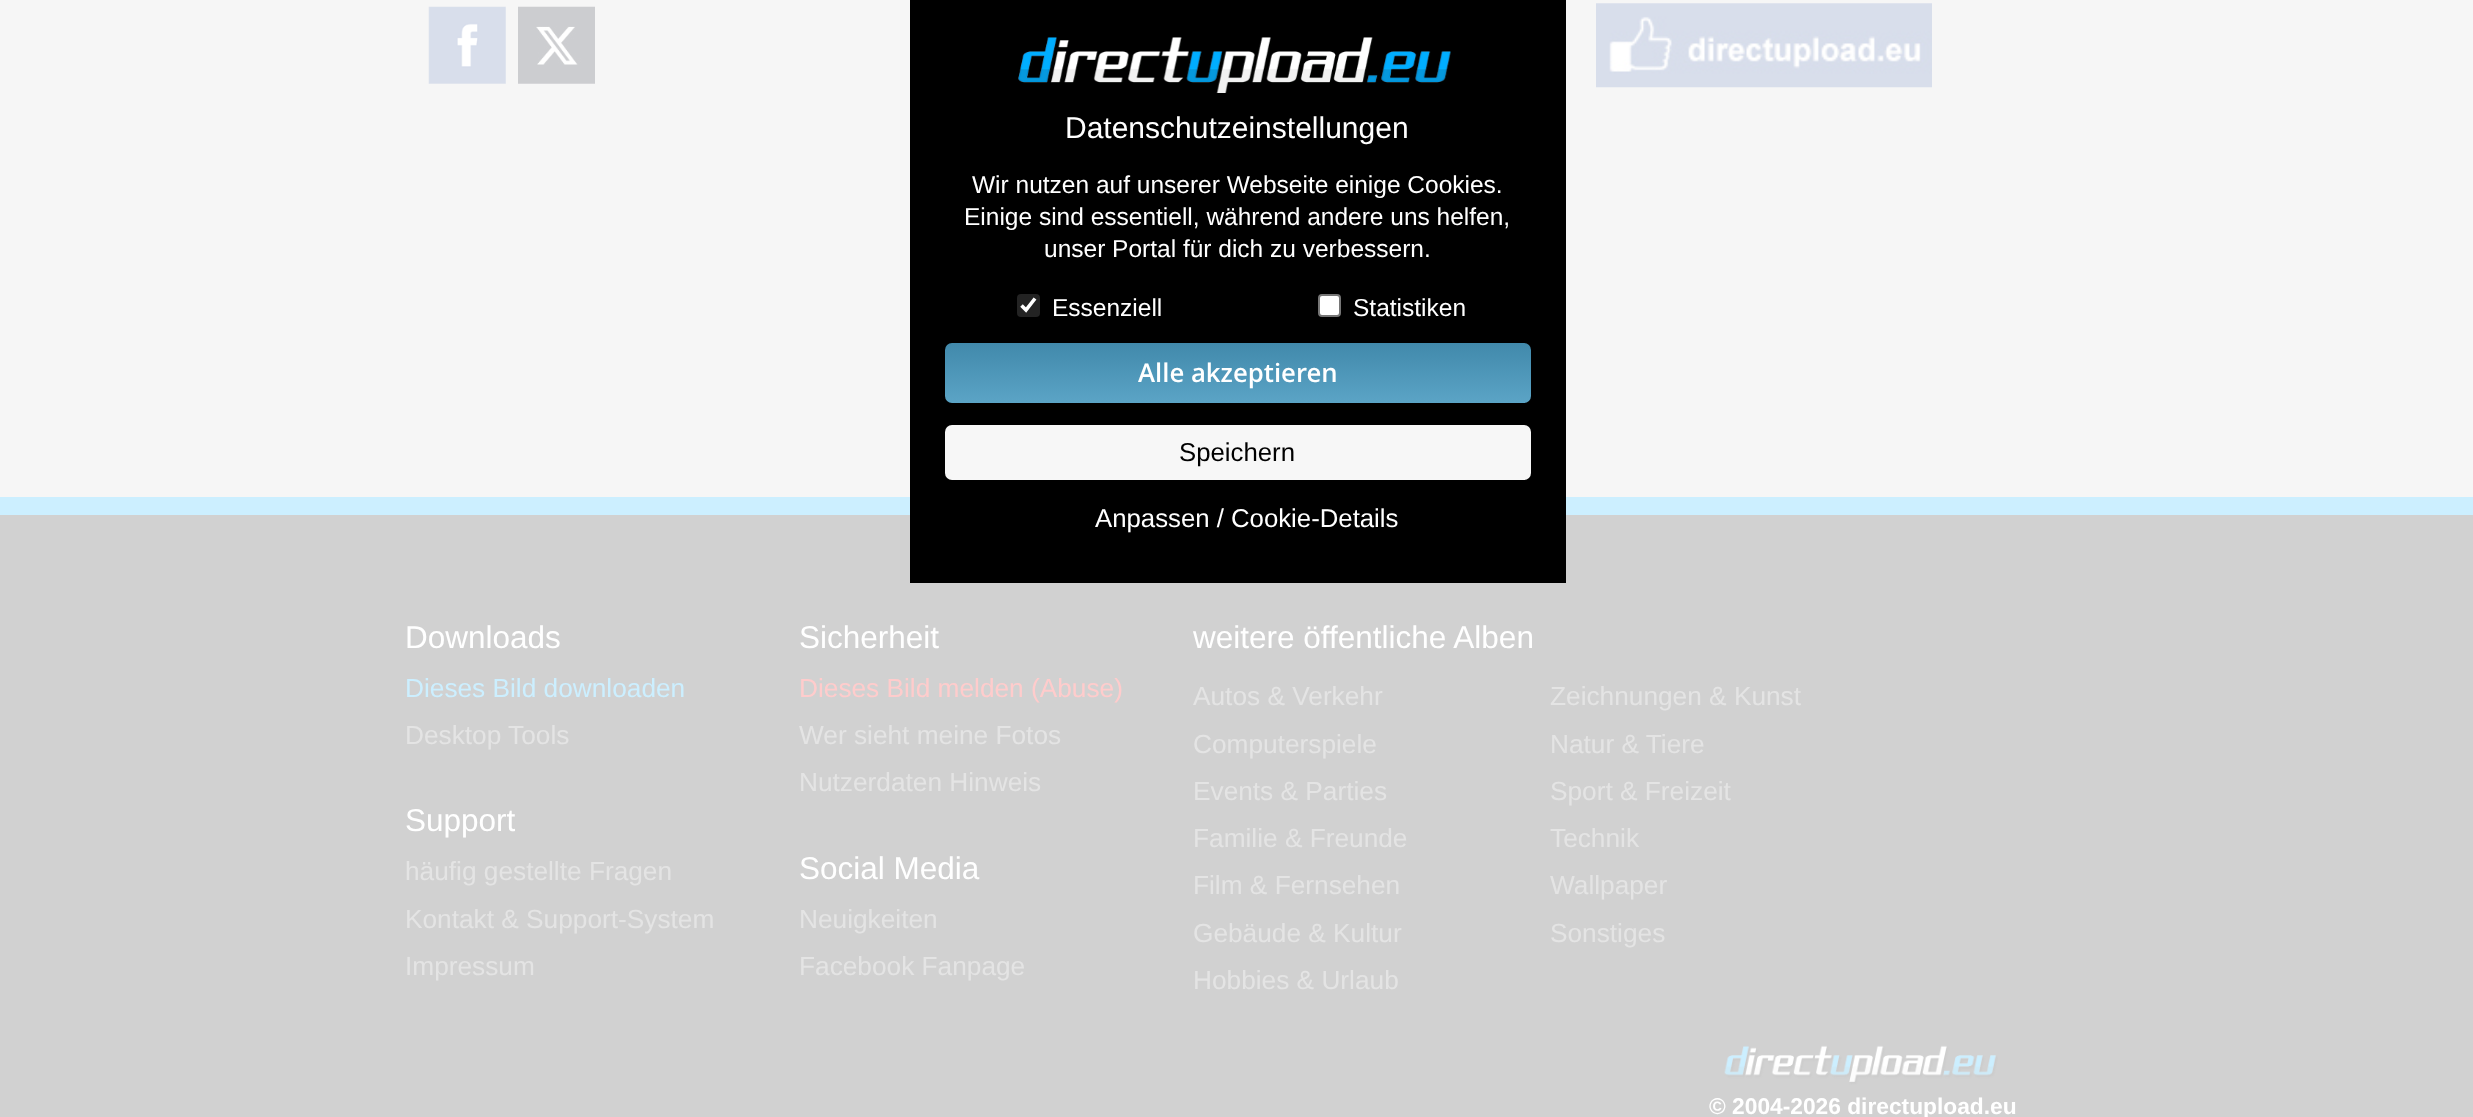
<svg xmlns="http://www.w3.org/2000/svg" width="2473" height="1117" viewBox="0 0 2473 1117">
  <defs>
    <linearGradient id="g1" gradientUnits="userSpaceOnUse" x1="1238" y1="343" x2="1238" y2="403"><stop offset="0" stop-color="rgb(65,137,171)"/><stop offset="1" stop-color="rgb(91,164,198)"/></linearGradient>
  </defs>
  <rect width="100%" height="100%" fill="rgb(204,239,255)"/>
  <rect x="0" y="0" width="2473" height="497" fill="rgb(246,246,246)"/>
  <rect x="0" y="515" width="2473" height="602" fill="rgb(209,209,209)"/>
  <rect x="910" y="0" width="656" height="583" fill="rgb(0,0,0)"/>
  <image x="1018" y="37" width="433" height="56" href="pic1.png"/>
  <text x="1065" y="138" font-family="Liberation Sans" font-size="30" fill="rgb(255,255,255)">Datenschutzeinstellungen</text>
  <g font-family="Liberation Sans" font-size="24.5" fill="rgb(255,255,255)">
    <text x="972" y="193">Wir nutzen auf unserer Webseite einige Cookies.</text>
    <text x="964" y="225">Einige sind essentiell, während andere uns helfen,</text>
    <text x="1044" y="257">unser Portal für dich zu verbessern.</text>
  </g>
  <rect x="1017" y="294" width="23" height="23" rx="4" fill="rgb(35,35,35)"/>
  <path d="M1021.5 305.5L1026 310L1035 298.5" fill="none" stroke="rgb(255,255,255)" stroke-width="3.6"/>
  <text x="1052" y="316" font-family="Liberation Sans" font-size="24.5" fill="rgb(255,255,255)">Essenziell</text>
  <rect x="1319" y="295" width="21" height="21" rx="3" fill="rgb(255,255,255)" stroke="rgb(118,118,118)" stroke-width="2"/>
  <text x="1353" y="316" font-family="Liberation Sans" font-size="24.5" fill="rgb(255,255,255)">Statistiken</text>
  <rect x="945" y="343" width="586" height="60" rx="7" fill="url(#g1)"/>
  <text x="1138" y="382" font-family="Open Sans" font-size="25.75" font-weight="600" fill="rgb(255,255,255)">Alle akzeptieren</text>
  <rect x="945" y="425" width="586" height="55" rx="7" fill="rgb(247,247,247)"/>
  <text x="1179" y="461" font-family="Liberation Sans" font-size="25.75" fill="rgb(0,0,0)">Speichern</text>
  <text x="1095" y="527" font-family="Liberation Sans" font-size="25.75" fill="rgb(255,255,255)">Anpassen / Cookie-Details</text>
  <image x="428" y="6" width="78" height="78" href="pic2.png"/>
  <image x="518" y="6" width="77" height="78" href="pic3.png"/>
  <image x="1596" y="3" width="336" height="85" href="pic4.png"/>
  <text x="405" y="648" font-family="Liberation Sans" font-size="31.5" fill="rgb(255,255,255)">Downloads</text>
  <text x="405" y="697" font-family="Liberation Sans" font-size="26.25" fill="rgb(204,239,255)">Dieses Bild downloaden</text>
  <text x="405" y="744" font-family="Liberation Sans" font-size="26.25" fill="rgb(228,228,228)">Desktop Tools</text>
  <text x="405" y="831" font-family="Liberation Sans" font-size="31.5" fill="rgb(255,255,255)">Support</text>
  <g font-family="Liberation Sans" font-size="26.25" fill="rgb(228,228,228)">
    <text>
      <tspan x="405" y="880">häufig gestellte Fragen</tspan>
      <tspan x="405" y="928">Kontakt &amp; Support-System</tspan>
      <tspan x="405" y="975">Impressum</tspan>
    </text>
  </g>
  <text x="799" y="648" font-family="Liberation Sans" font-size="31.5" fill="rgb(255,255,255)">Sicherheit</text>
  <text x="799" y="697" font-family="Liberation Sans" font-size="26.25" fill="rgb(255,204,204)">Dieses Bild melden (Abuse)</text>
  <g font-family="Liberation Sans" font-size="26.25" fill="rgb(228,228,228)">
    <text>
      <tspan x="799" y="744">Wer sieht meine Fotos</tspan>
      <tspan x="799" y="791">Nutzerdaten Hinweis</tspan>
    </text>
  </g>
  <text x="799" y="879" font-family="Liberation Sans" font-size="31.5" fill="rgb(255,255,255)">Social Media</text>
  <g font-family="Liberation Sans" font-size="26.25" fill="rgb(228,228,228)">
    <text>
      <tspan x="799" y="928">Neuigkeiten</tspan>
      <tspan x="799" y="975">Facebook Fanpage</tspan>
    </text>
  </g>
  <text x="1193" y="648" font-family="Liberation Sans" font-size="31.5" fill="rgb(255,255,255)">weitere öffentliche Alben</text>
  <g font-family="Liberation Sans" font-size="26.25" fill="rgb(228,228,228)">
    <text>
      <tspan x="1193" y="705">Autos &amp; Verkehr</tspan>
      <tspan x="1193" y="753">Computerspiele</tspan>
      <tspan x="1193" y="800">Events &amp; Parties</tspan>
      <tspan x="1193" y="847">Familie &amp; Freunde</tspan>
      <tspan x="1193" y="894">Film &amp; Fernsehen</tspan>
      <tspan x="1193" y="942">Gebäude &amp; Kultur</tspan>
      <tspan x="1193" y="989">Hobbies &amp; Urlaub</tspan>
    </text>
    <text>
      <tspan x="1550" y="705">Zeichnungen &amp; Kunst</tspan>
      <tspan x="1550" y="753">Natur &amp; Tiere</tspan>
      <tspan x="1550" y="800">Sport &amp; Freizeit</tspan>
      <tspan x="1550" y="847">Technik</tspan>
      <tspan x="1550" y="894">Wallpaper</tspan>
      <tspan x="1550" y="942">Sonstiges</tspan>
    </text>
  </g>
  <image x="1724" y="1045" width="274" height="40" href="pic5.png"/>
  <text x="1709" y="1114" font-family="Liberation Sans" font-size="22.75" font-weight="bold" fill="rgb(255,255,255)">© 2004-2026 directupload.eu</text>
</svg>
